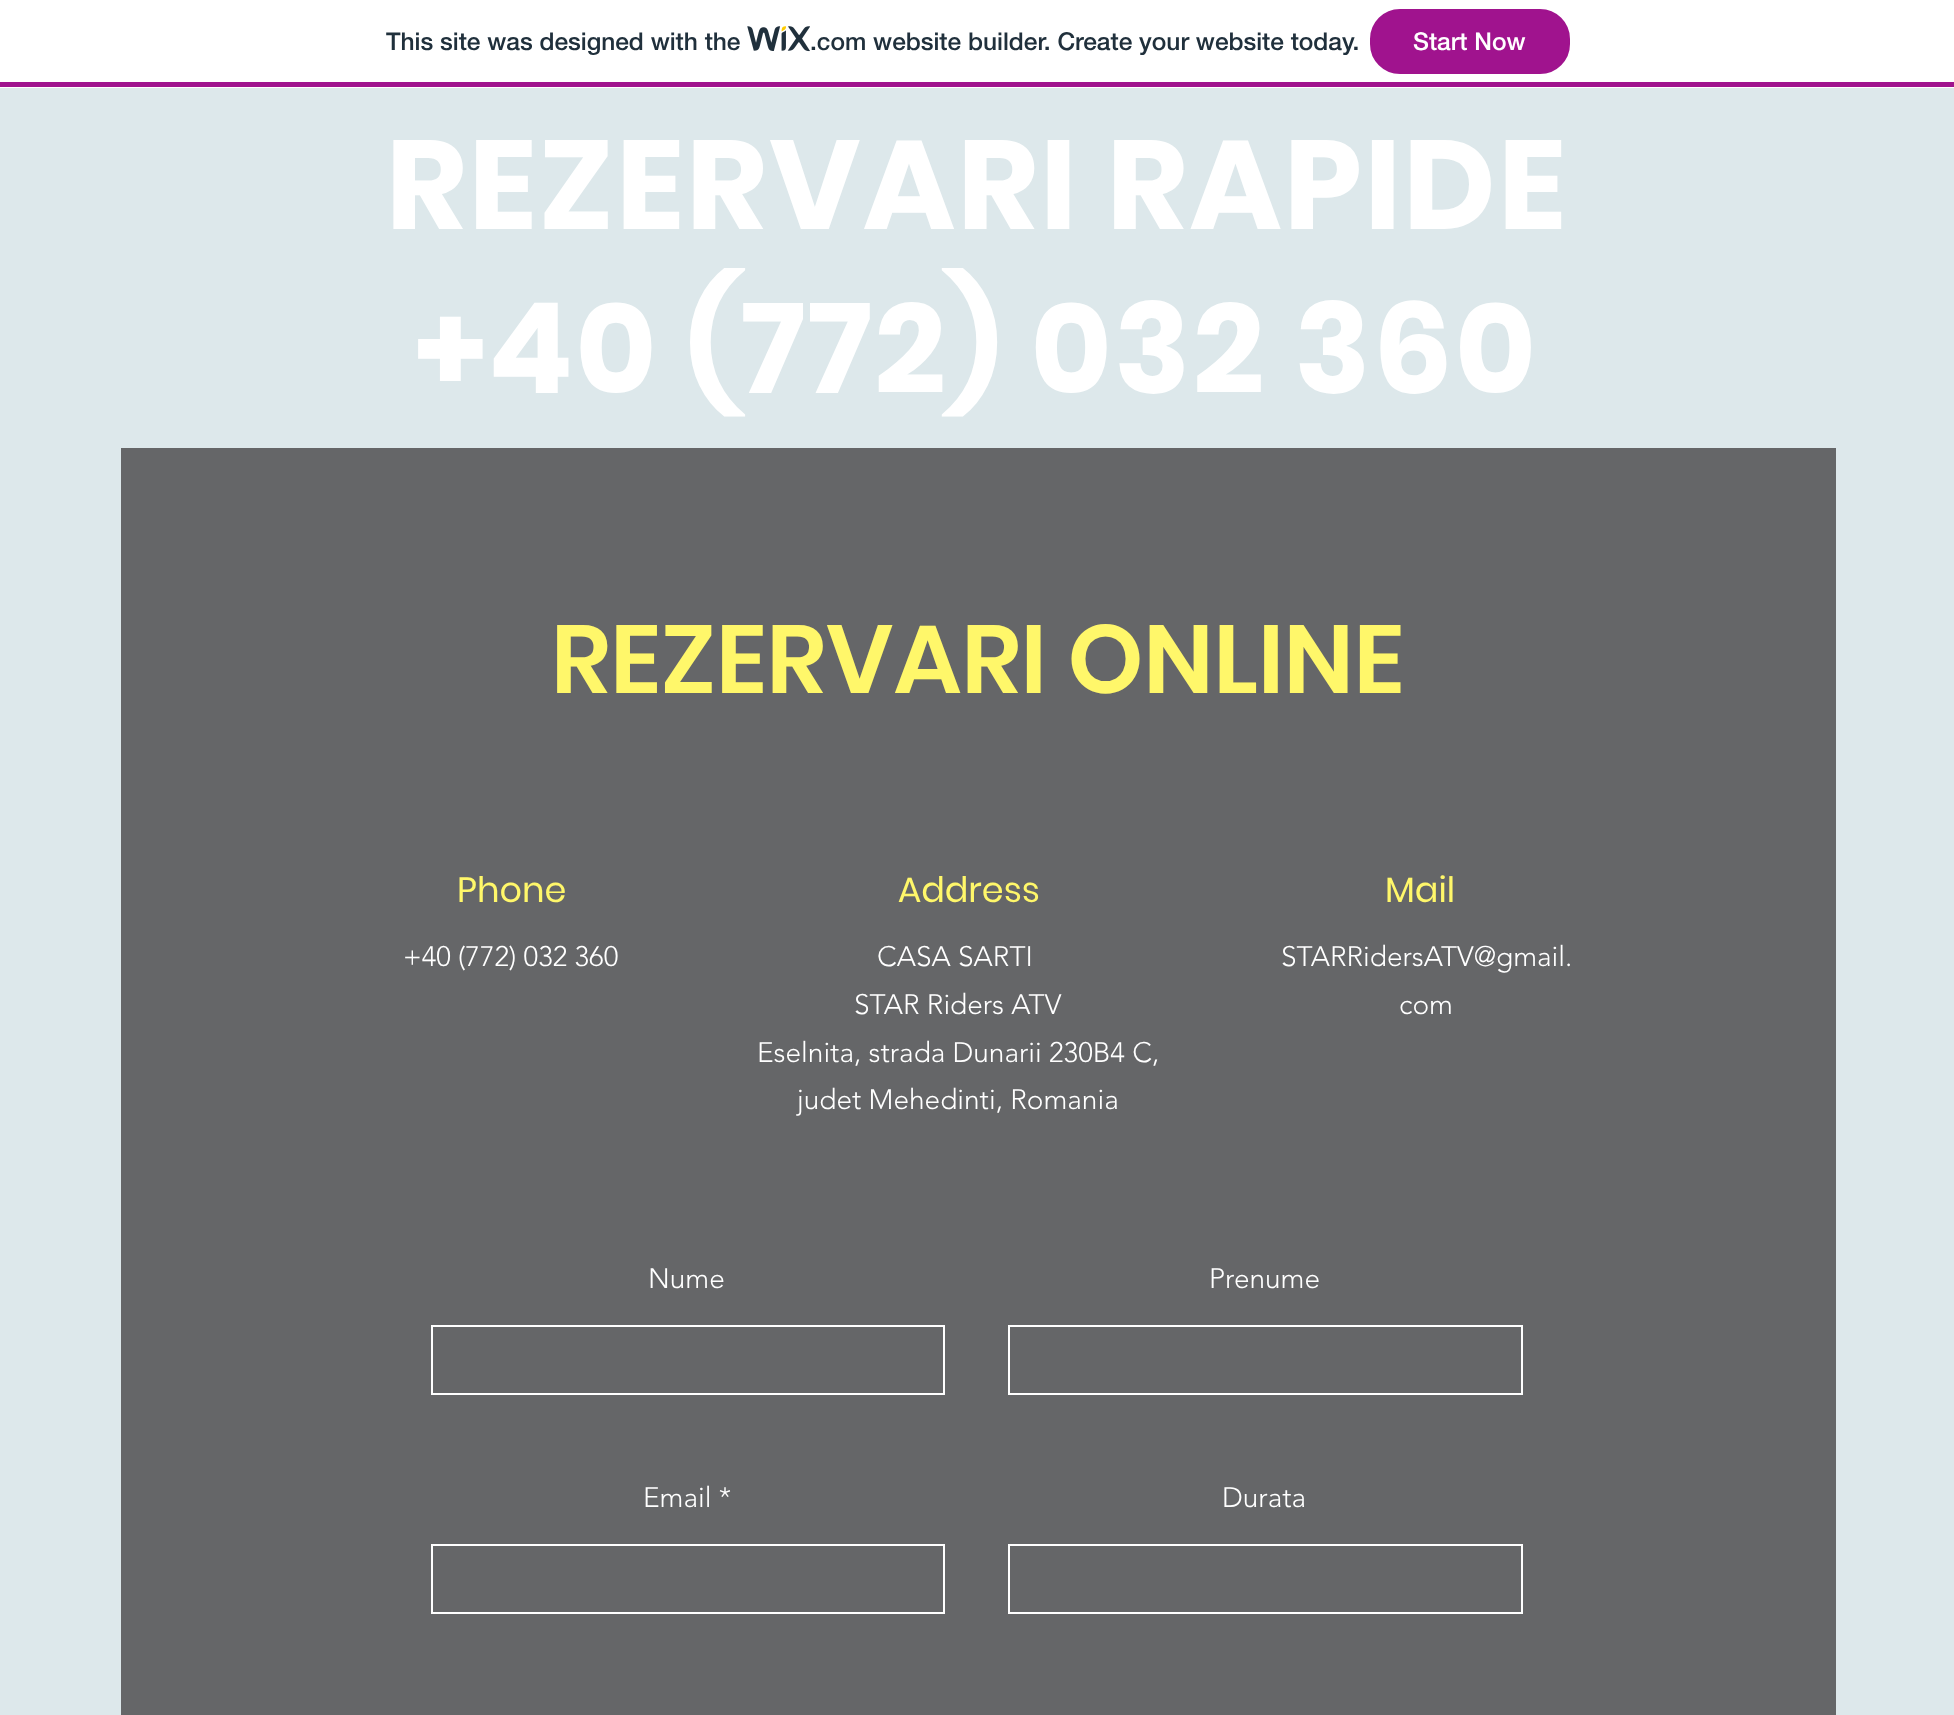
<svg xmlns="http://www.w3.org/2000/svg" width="1954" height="1715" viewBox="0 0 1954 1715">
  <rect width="100%" height="100%" fill="rgb(255,255,255)"/>
  <rect x="0" y="82" width="1954" height="5" fill="rgb(160,19,142)"/>
  <text x="386" y="50" font-family="'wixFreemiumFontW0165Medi'" font-size="24.5" font-weight="500" fill="rgb(32,48,60)">This site was designed with the</text>
  <image x="747" y="26" width="63" height="26" href="pic1.png"/>
  <text x="810" y="50" font-family="'wixFreemiumFontW0165Medi'" font-size="24.5" font-weight="500" fill="rgb(32,48,60)">.com website builder. Create your website today.</text>
  <rect x="1371" y="10" width="198" height="63" rx="29" fill="rgb(160,19,142)" stroke="rgb(160,19,142)" stroke-width="2"/>
  <text x="1413" y="50" font-family="'wixFreemiumFontW0165Medi'" font-size="24.5" font-weight="500" fill="rgb(255,255,255)">Start Now</text>
  <rect x="0" y="88" width="1954" height="1627" fill="rgb(221,232,235)"/>
  <g font-family="Poppins" font-size="126" font-weight="bold" letter-spacing="2.5" fill="rgb(255,255,255)">
    <text x="386" y="229">REZERVARI RAPIDE</text>
    <text x="415" y="393">+40 (772) 032 360</text>
  </g>
  <rect x="121" y="448" width="1715" height="1267" fill="rgb(101,102,104)"/>
  <text x="551" y="693" font-family="Poppins" font-size="96.25" font-weight="600" fill="rgb(255,247,106)">REZERVARI ONLINE</text>
  <text x="457" y="902" font-family="Poppins" font-size="35" fill="rgb(255,247,106)">Phone</text>
  <text x="403" y="966" font-family="'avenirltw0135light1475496'" font-size="28" font-weight="300" fill="rgb(255,255,255)">+40 (772) 032 360</text>
  <text x="898" y="902" font-family="Poppins" font-size="35" fill="rgb(255,247,106)">Address</text>
  <g font-family="'avenirltw0135light1475496'" font-size="28" font-weight="300" fill="rgb(255,255,255)">
    <text x="877" y="966">CASA SARTI</text>
    <text x="854" y="1014">STAR Riders ATV</text>
    <text x="757" y="1062">Eselnita, strada Dunarii 230B4 C,</text>
    <text x="797" y="1109">judet Mehedinti, Romania</text>
  </g>
  <text x="1385" y="902" font-family="Poppins" font-size="35" fill="rgb(255,247,106)">Mail</text>
  <g font-family="'avenirltw0135light1475496'" font-size="28" font-weight="300" fill="rgb(255,255,255)">
    <text x="1281" y="966">STARRidersATV@gmail.</text>
    <text x="1399" y="1014">com</text>
    <text x="648" y="1288">Nume</text>
  </g>
  <rect x="432" y="1326" width="512" height="68" fill="none" stroke="rgb(255,255,255)" stroke-width="2"/>
  <text x="1209" y="1288" font-family="'avenirltw0135light1475496'" font-size="28" font-weight="300" fill="rgb(255,255,255)">Prenume</text>
  <rect x="1009" y="1326" width="513" height="68" fill="none" stroke="rgb(255,255,255)" stroke-width="2"/>
  <text x="643" y="1507" font-family="'avenirltw0135light1475496'" font-size="28" font-weight="300" fill="rgb(255,255,255)">Email *</text>
  <rect x="432" y="1545" width="512" height="68" fill="none" stroke="rgb(255,255,255)" stroke-width="2"/>
  <text x="1222" y="1507" font-family="'avenirltw0135light1475496'" font-size="28" font-weight="300" fill="rgb(255,255,255)">Durata</text>
  <rect x="1009" y="1545" width="513" height="68" fill="none" stroke="rgb(255,255,255)" stroke-width="2"/>
</svg>
